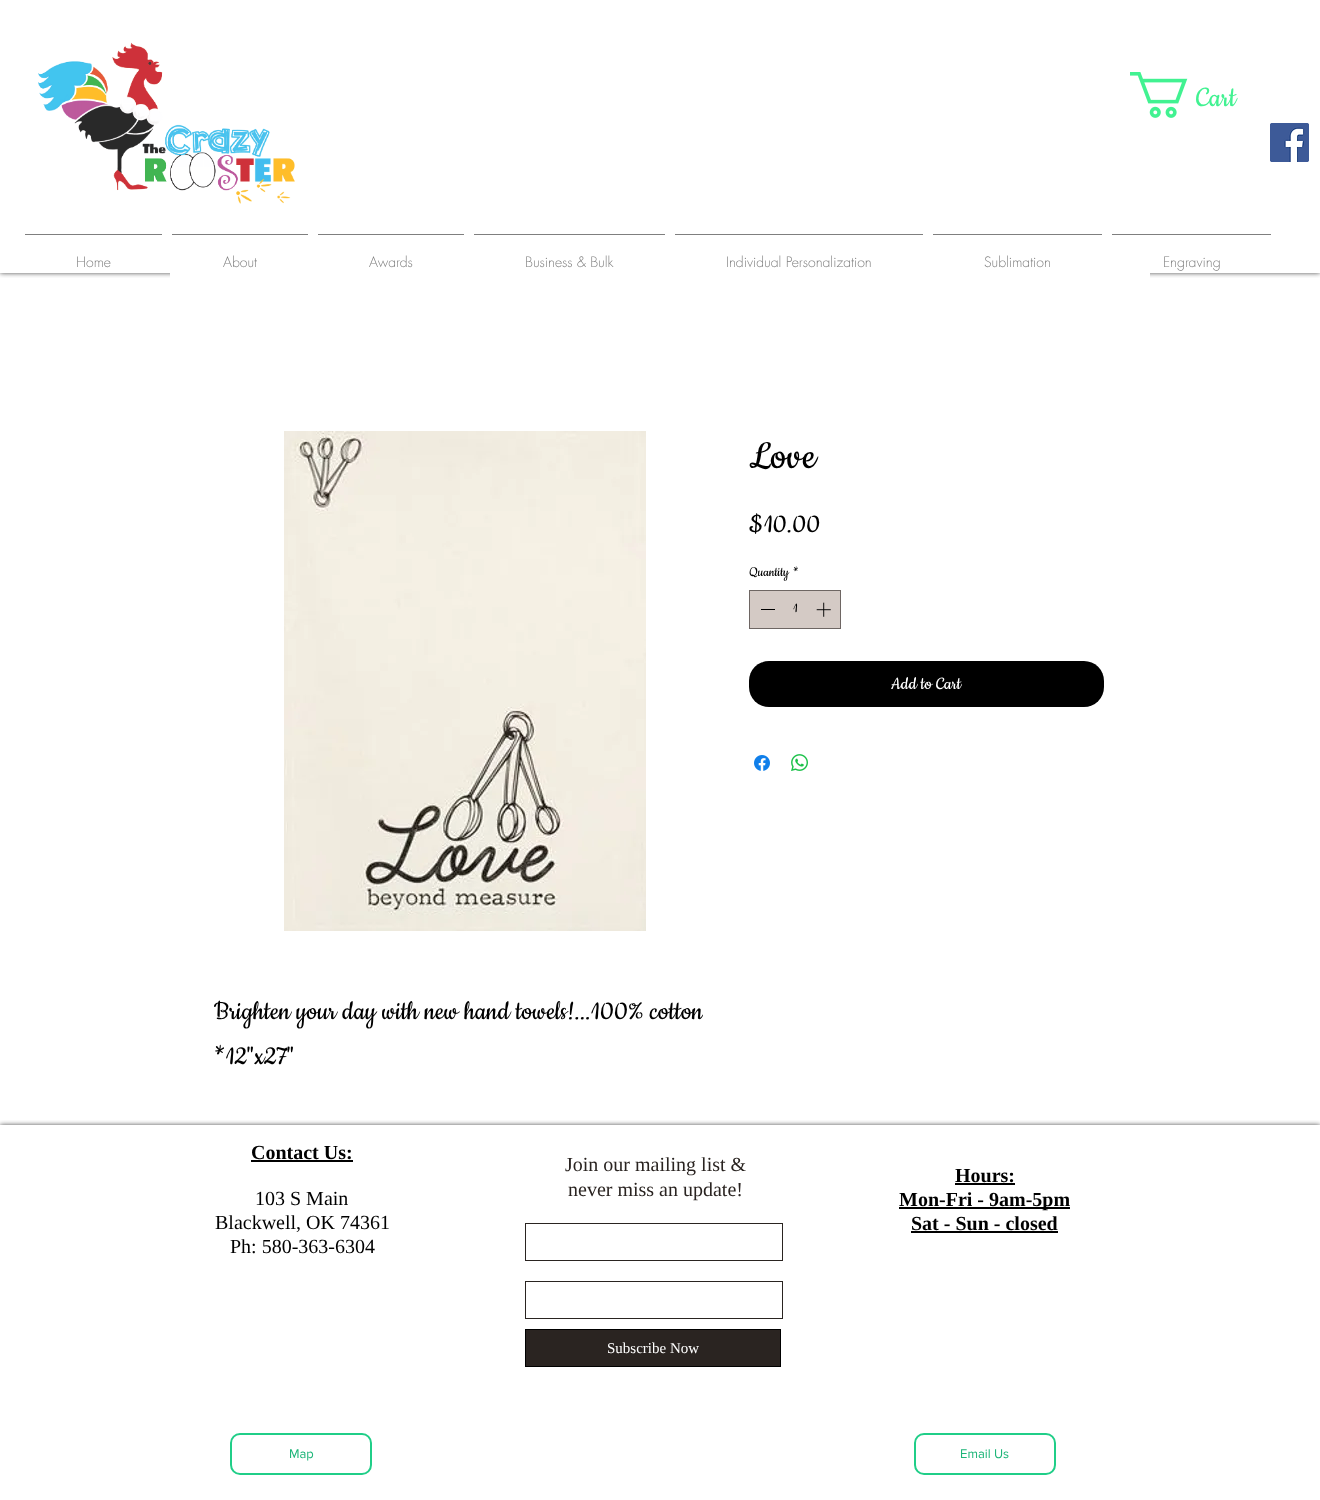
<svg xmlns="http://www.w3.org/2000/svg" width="1320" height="1500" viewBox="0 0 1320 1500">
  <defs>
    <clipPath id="clip1"><rect x="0" y="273" width="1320" height="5"/></clipPath>
    <clipPath id="clip2"><rect x="214" y="990" width="489" height="90"/></clipPath>
    <clipPath id="clip3"><rect x="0" y="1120" width="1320" height="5"/></clipPath>
  </defs>
  <rect width="100%" height="100%" fill="rgb(255,255,255)"/>
  <g clip-path="url(#clip1)">
    <rect x="0" y="0" width="1320" height="273" fill="rgba(0,0,0,0.7)" filter="blur(2.5px)"/>
  </g>
  <image x="38" y="42" width="257" height="162" href="pic1.png"/>
  <image x="1130" y="72" width="58" height="46" href="pic2.png"/>
  <text x="1196" y="106" font-family="Cookie" font-size="32" fill="rgb(65,242,145)">Cart</text>
  <image x="1270" y="123" width="39" height="39" href="pic3.png"/>
  <rect x="25" y="234" width="137" height="1" fill="rgb(127,127,127)"/>
  <text x="76" y="267" font-family="futura" font-size="14" font-weight="300" fill="rgb(127,127,127)">Home</text>
  <rect x="172" y="234" width="136" height="1" fill="rgb(127,127,127)"/>
  <text x="223" y="267" font-family="futura" font-size="14" font-weight="300" fill="rgb(127,127,127)">About</text>
  <rect x="318" y="234" width="146" height="1" fill="rgb(127,127,127)"/>
  <text x="369" y="267" font-family="futura" font-size="14" font-weight="300" fill="rgb(127,127,127)">Awards</text>
  <rect x="474" y="234" width="191" height="1" fill="rgb(127,127,127)"/>
  <text x="525" y="267" font-family="futura" font-size="14" font-weight="300" fill="rgb(127,127,127)">Business &amp; Bulk</text>
  <rect x="675" y="234" width="248" height="1" fill="rgb(127,127,127)"/>
  <text x="726" y="267" font-family="futura" font-size="14" font-weight="300" fill="rgb(127,127,127)">Individual Personalization</text>
  <rect x="933" y="234" width="169" height="1" fill="rgb(127,127,127)"/>
  <text x="984" y="267" font-family="futura" font-size="14" font-weight="300" fill="rgb(127,127,127)">Sublimation</text>
  <rect x="1112" y="234" width="159" height="1" fill="rgb(127,127,127)"/>
  <text x="1163" y="267" font-family="futura" font-size="14" font-weight="300" fill="rgb(127,127,127)">Engraving</text>
  <rect x="170" y="273" width="980" height="5" fill="rgb(255,255,255)"/>
  <text x="749" y="468" font-family="Cookie" font-size="45" fill="rgb(0,0,0)">Love</text>
  <text x="749" y="532" font-family="Cookie" font-size="30" fill="rgb(0,0,0)">$10.00</text>
  <g font-family="Cookie" font-size="15" fill="rgb(0,0,0)">
    <text x="749" y="576">Quantity</text>
    <text x="793" y="576">*</text>
  </g>
  <rect x="749.5" y="590.5" width="91" height="38" fill="rgb(212,202,197)" stroke="rgb(110,102,99)"/>
  <rect x="761" y="609" width="14" height="1" fill="rgb(0,0,0)"/>
  <text x="793" y="612" font-family="Cookie" font-size="15" fill="rgb(0,0,0)">1</text>
  <image x="816" y="602" width="15" height="15" href="pic4.png"/>
  <rect x="749" y="661" width="355" height="46" rx="20" fill="rgb(0,0,0)"/>
  <text x="891" y="689" font-family="Cookie" font-size="20" fill="rgb(255,255,255)">Add to Cart</text>
  <image x="754" y="755" width="16" height="16" href="pic5.png"/>
  <image x="791" y="754" width="17" height="17" href="pic6.png"/>
  <image x="284" y="431" width="362" height="500" href="pic7.png"/>
  <g clip-path="url(#clip2)">
    <text x="214" y="1019" font-family="Cookie" font-size="30" fill="rgb(0,0,0)">Brighten your day with new hand towels!...100% cotton</text>
  </g>
  <text x="214" y="1064" font-family="Cookie" font-size="30" fill="rgb(0,0,0)">*12"x27"</text>
  <g clip-path="url(#clip3)">
    <rect x="0" y="1125" width="1320" height="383" fill="rgba(0,0,0,0.7)" filter="blur(2.5px)"/>
  </g>
  <text x="251" y="1159" font-family="Liberation Serif" font-size="20" font-weight="bold" fill="rgb(0,0,0)">Contact Us:</text>
  <rect x="251" y="1160" width="102" height="2" fill="rgb(0,0,0)"/>
  <g font-family="Liberation Serif" font-size="20" fill="rgb(0,0,0)">
    <text x="255" y="1205">103 S Main</text>
    <text x="215" y="1229">Blackwell, OK 74361</text>
    <text x="230" y="1253">Ph: 580-363-6304</text>
  </g>
  <g font-family="Liberation Serif" font-size="20" fill="rgb(42,36,33)">
    <text x="565" y="1171">Join our mailing list &amp;</text>
    <text x="568" y="1196">never miss an update!</text>
  </g>
  <rect x="525.5" y="1223.5" width="257" height="37" fill="none" stroke="rgb(42,36,33)"/>
  <rect x="525.5" y="1281.5" width="257" height="37" fill="none" stroke="rgb(42,36,33)"/>
  <rect x="525.5" y="1329.5" width="255" height="37" fill="rgb(42,36,33)" stroke="rgb(0,0,0)"/>
  <text x="607" y="1353" font-family="Liberation Serif" font-size="15" fill="rgb(255,255,255)">Subscribe Now</text>
  <text x="955" y="1182" font-family="Liberation Serif" font-size="20" font-weight="bold" fill="rgb(0,0,0)">Hours:</text>
  <rect x="955" y="1183" width="60" height="2" fill="rgb(0,0,0)"/>
  <rect x="899" y="1207" width="171" height="2" fill="rgb(0,0,0)"/>
  <g font-family="Liberation Serif" font-size="20" font-weight="bold" fill="rgb(0,0,0)">
    <text x="899" y="1206">Mon-Fri - 9am-5pm</text>
    <text x="911" y="1230">Sat - Sun - closed</text>
  </g>
  <rect x="911" y="1231" width="147" height="2" fill="rgb(0,0,0)"/>
  <rect x="231" y="1434" width="140" height="40" rx="9" fill="none" stroke="rgb(32,206,136)" stroke-width="2"/>
  <text x="289" y="1458" font-family="'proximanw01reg'" font-size="13" fill="rgb(29,181,120)">Map</text>
  <rect x="915" y="1434" width="140" height="40" rx="9" fill="none" stroke="rgb(32,206,136)" stroke-width="2"/>
  <text x="960" y="1458" font-family="'proximanw01reg'" font-size="13" fill="rgb(29,181,120)">Email Us</text>
</svg>
